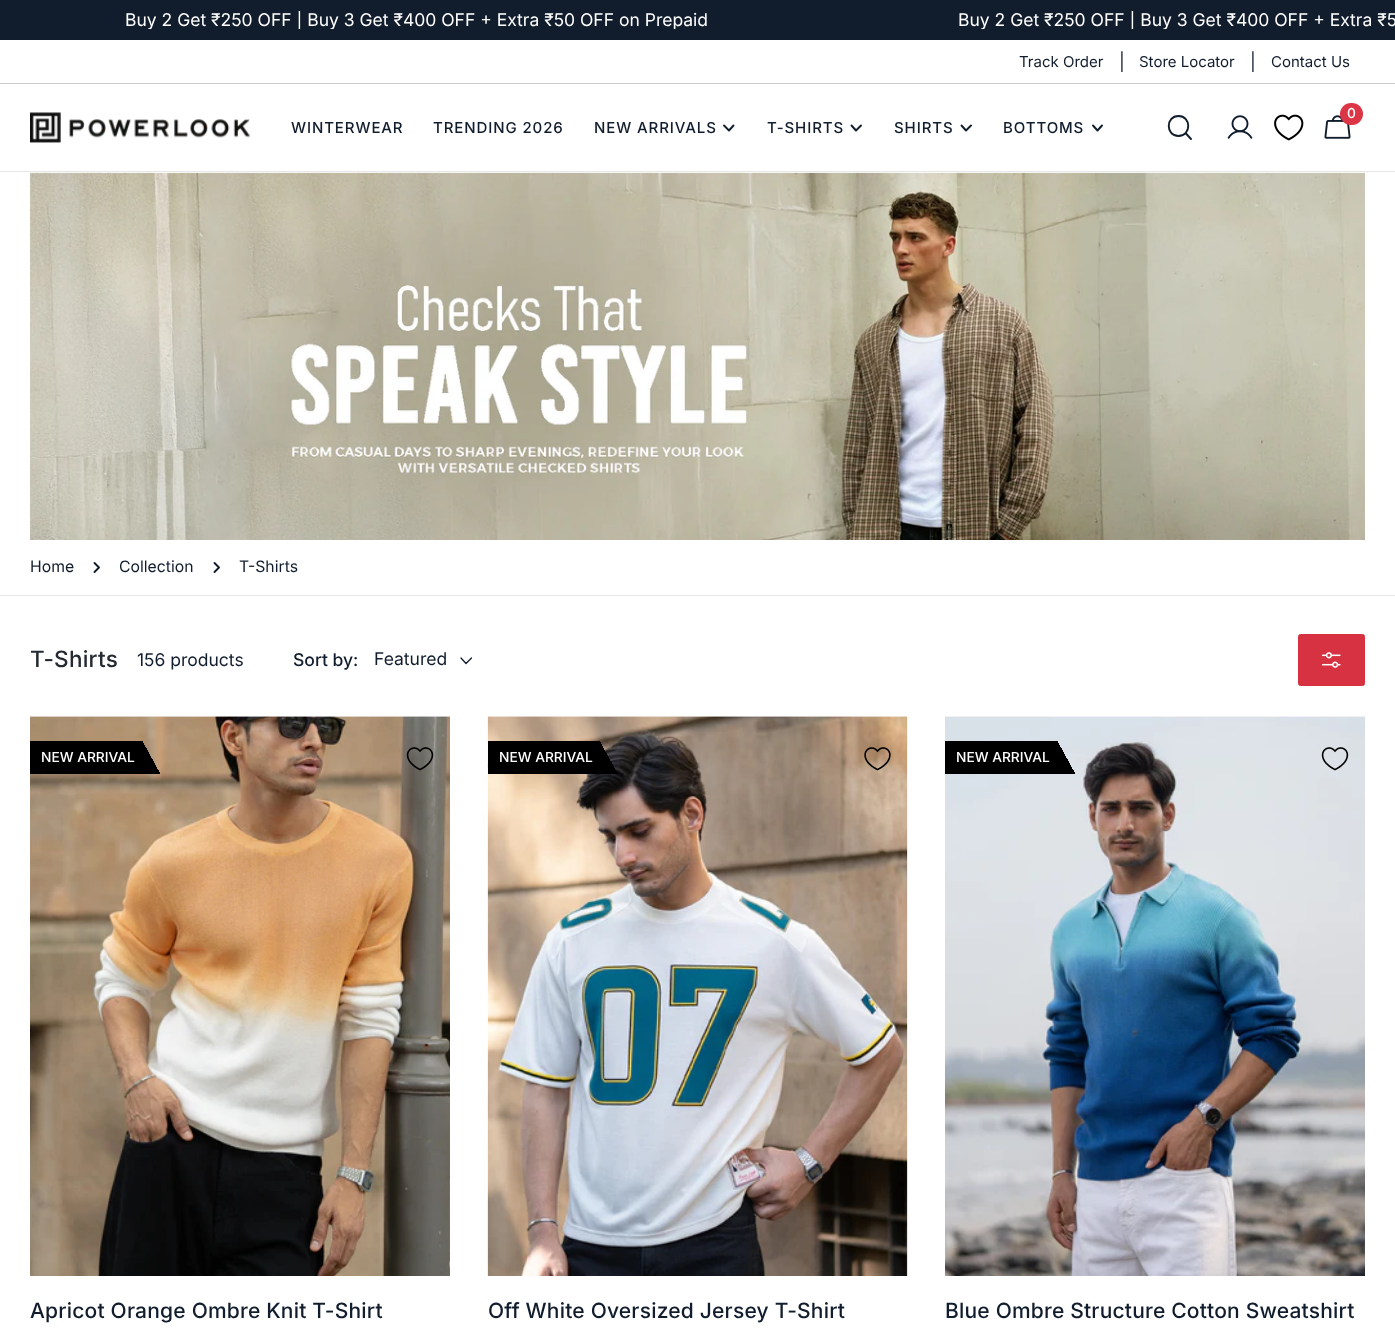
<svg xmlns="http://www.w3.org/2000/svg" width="1395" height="1329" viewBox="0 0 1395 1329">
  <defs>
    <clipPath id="clip1"><rect x="0" y="11" width="1395" height="18"/></clipPath>
  </defs>
  <rect width="100%" height="100%" fill="rgb(255,255,255)"/>
  <rect x="0" y="0" width="1395" height="40" fill="rgb(17,29,45)"/>
  <g clip-path="url(#clip1)">
    <g font-family="Inter" font-size="17.5" fill="rgb(255,255,255)">
      <text x="125" y="26">Buy 2 Get ₹250 OFF | Buy 3 Get ₹400 OFF + Extra ₹50 OFF on Prepaid</text>
      <text x="958" y="26">Buy 2 Get ₹250 OFF | Buy 3 Get ₹400 OFF + Extra ₹5</text>
    </g>
  </g>
  <rect x="0" y="83" width="1395" height="1" fill="rgb(204,204,204)"/>
  <text x="1019" y="67" font-family="Inter" font-size="15" fill="rgb(17,29,45)">Track Order</text>
  <text x="1119" y="68" font-family="Inter" font-size="17.5" fill="rgb(17,29,45)">|</text>
  <text x="1139" y="67" font-family="Inter" font-size="15" fill="rgb(17,29,45)">Store Locator</text>
  <text x="1250" y="68" font-family="Inter" font-size="17.5" fill="rgb(17,29,45)">|</text>
  <text x="1271" y="67" font-family="Inter" font-size="15" fill="rgb(17,29,45)">Contact Us</text>
  <rect x="0" y="171" width="1395" height="1" fill="rgb(230,230,230)"/>
  <image x="30" y="112" width="220" height="31" href="pic1.png"/>
  <g font-family="Inter" font-size="15" font-weight="500" letter-spacing="0.9" fill="rgb(17,29,45)">
    <text x="291" y="133">WINTERWEAR</text>
    <text x="433" y="133">TRENDING 2026</text>
    <text x="594" y="133">NEW ARRIVALS</text>
  </g>
  <path d="M733.5 125.5L729 130.5L724 125.5" fill="none" stroke="rgb(17,29,45)" stroke-width="1.9" stroke-linecap="round" stroke-linejoin="round"/>
  <text x="767" y="133" font-family="Inter" font-size="15" font-weight="500" letter-spacing="0.9" fill="rgb(17,29,45)">T-SHIRTS</text>
  <path d="M861 125.5L856 130.5L851.5 125.5" fill="none" stroke="rgb(17,29,45)" stroke-width="1.9" stroke-linecap="round" stroke-linejoin="round"/>
  <text x="894" y="133" font-family="Inter" font-size="15" font-weight="500" letter-spacing="0.9" fill="rgb(17,29,45)">SHIRTS</text>
  <path d="M971 125.5L966 130.5L961.5 125.5" fill="none" stroke="rgb(17,29,45)" stroke-width="1.9" stroke-linecap="round" stroke-linejoin="round"/>
  <text x="1003" y="133" font-family="Inter" font-size="15" font-weight="500" letter-spacing="0.9" fill="rgb(17,29,45)">BOTTOMS</text>
  <path d="M1102 125.5L1097.5 130.5L1093 125.5" fill="none" stroke="rgb(17,29,45)" stroke-width="1.9" stroke-linecap="round" stroke-linejoin="round"/>
  <path d="M1178.5 136C1191.5 136 1191.5 116 1178.5 116C1165.5 116 1165.5 136 1178.5 136ZM1185.5 133L1191 139" fill="none" stroke="rgb(17,29,45)" stroke-width="1.9" stroke-linecap="round" stroke-linejoin="round"/>
  <image x="1227" y="115" width="26" height="24" href="pic2.png"/>
  <image x="1274" y="114" width="30" height="27" href="pic3.png"/>
  <image x="1324" y="115" width="27" height="24" href="pic4.png"/>
  <rect x="1340" y="103" width="23" height="22" rx="11" fill="rgb(220,53,69)"/>
  <text x="1347" y="118" font-family="Inter" font-size="13.75" font-weight="500" fill="rgb(255,255,255)">0</text>
  <image x="30" y="172" width="1335" height="368" href="pic5.png"/>
  <text x="30" y="572" font-family="Inter" font-size="15.75" fill="rgb(17,29,45)">Home</text>
  <path d="M94.5 563L99 567.5L94.5 572" fill="none" stroke="rgb(17,29,45)" stroke-width="1.9" stroke-linecap="round" stroke-linejoin="round"/>
  <text x="119" y="572" font-family="Inter" font-size="15.75" fill="rgb(17,29,45)">Collection</text>
  <path d="M214.5 563L219 567.5L214.5 572" fill="none" stroke="rgb(17,29,45)" stroke-width="1.9" stroke-linecap="round" stroke-linejoin="round"/>
  <text x="239" y="572" font-family="Inter" font-size="15.75" fill="rgb(17,29,45)">T-Shirts</text>
  <rect x="0" y="595" width="1395" height="1" fill="rgb(230,230,230)"/>
  <text x="30" y="667" font-family="Inter" font-size="22.5" font-weight="500" letter-spacing="0.25" fill="rgb(37,41,49)">T-Shirts</text>
  <text x="137" y="666" font-family="Inter" font-size="17.5" fill="rgb(17,29,45)">156 products</text>
  <text x="293" y="666" font-family="Inter" font-size="17.5" font-weight="500" fill="rgb(17,29,45)">Sort by:</text>
  <text x="374" y="665" font-family="Inter" font-size="17.5" fill="rgb(17,29,45)">Featured</text>
  <path d="M471.5 658L466 663.5L461 658" fill="none" stroke="rgb(17,29,45)" stroke-width="1.3" stroke-linecap="round" stroke-linejoin="round"/>
  <rect x="1298.5" y="634.5" width="66" height="51" rx="2" fill="rgb(214,50,66)" stroke="rgb(214,50,66)"/>
  <image x="1321" y="652" width="20" height="16" href="pic6.png"/>
  <image x="30" y="716" width="420" height="560" href="pic7.png"/>
  <text x="41" y="762" font-family="Inter" font-size="13.75" font-weight="500" fill="rgb(255,255,255)">NEW ARRIVAL</text>
  <image x="406" y="747" width="28" height="24" href="pic8.png"/>
  <text x="30" y="1318" font-family="Inter" font-size="21" font-weight="500" letter-spacing="0.2" fill="rgb(17,29,45)">Apricot Orange Ombre Knit T-Shirt</text>
  <image x="487" y="716" width="421" height="560" href="pic9.png"/>
  <text x="499" y="762" font-family="Inter" font-size="13.75" font-weight="500" fill="rgb(255,255,255)">NEW ARRIVAL</text>
  <image x="864" y="747" width="27" height="24" href="pic10.png"/>
  <text x="488" y="1318" font-family="Inter" font-size="21" font-weight="500" letter-spacing="0.2" fill="rgb(17,29,45)">Off White Oversized Jersey T-Shirt</text>
  <image x="945" y="716" width="420" height="560" href="pic11.png"/>
  <text x="956" y="762" font-family="Inter" font-size="13.75" font-weight="500" fill="rgb(255,255,255)">NEW ARRIVAL</text>
  <image x="1321" y="747" width="28" height="24" href="pic12.png"/>
  <text x="945" y="1318" font-family="Inter" font-size="21" font-weight="500" letter-spacing="0.2" fill="rgb(17,29,45)">Blue Ombre Structure Cotton Sweatshirt</text>
</svg>
